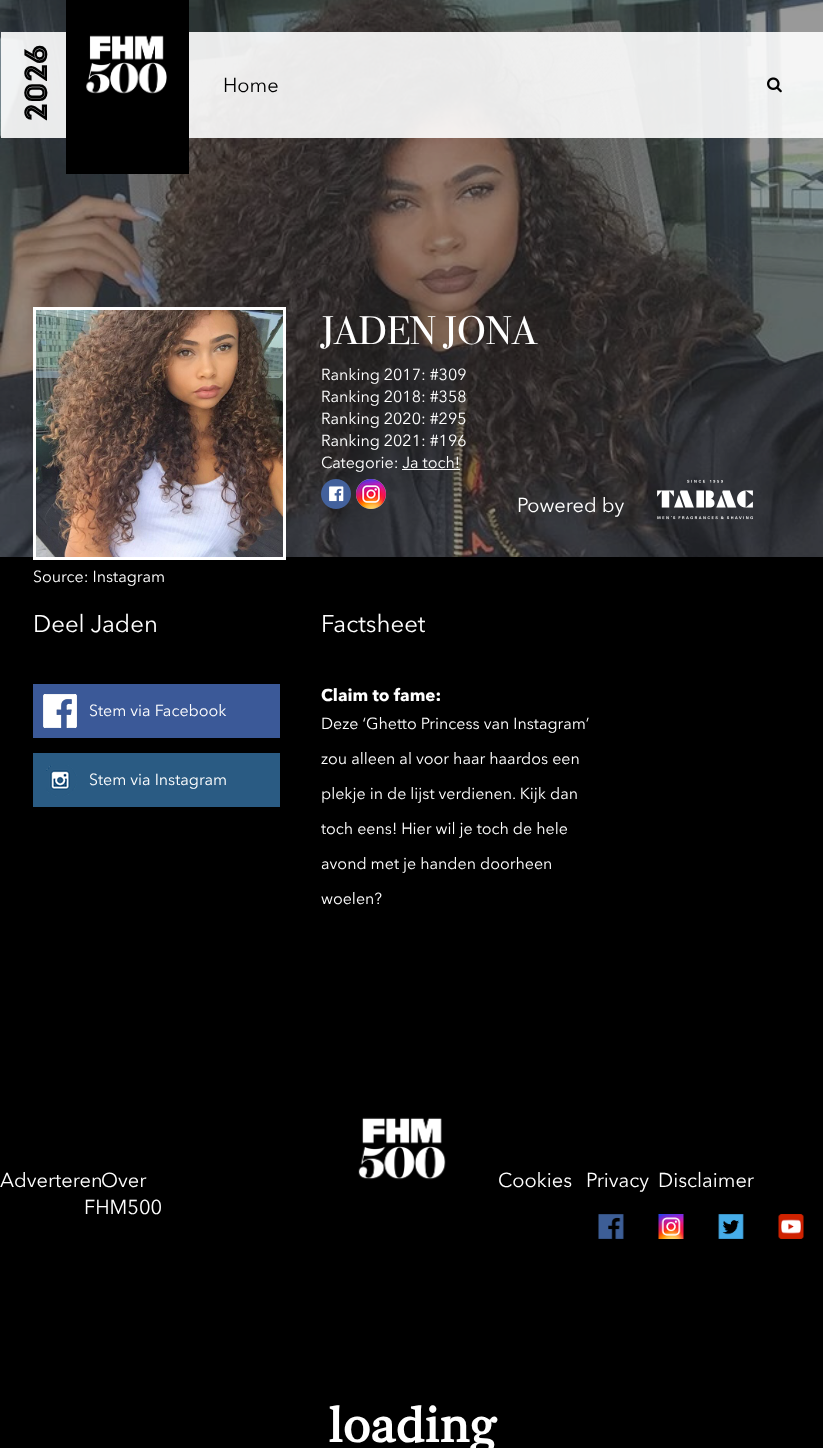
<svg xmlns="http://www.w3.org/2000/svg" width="823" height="1448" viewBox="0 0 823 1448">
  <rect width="100%" height="100%" fill="rgb(0,0,0)"/>
  <image x="0" y="0" width="823" height="557" href="pic3.png"/>
  <rect x="1" y="32" width="822" height="106" fill="rgba(255,255,255,0.9)"/>
  <rect x="66" y="0" width="123" height="174" fill="rgb(0,0,0)"/>
  <image x="86" y="35" width="81" height="59" href="pic1.png"/>
  <text x="47" y="121" transform="rotate(-90 47 121)" font-family="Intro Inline" font-size="32" fill="rgb(0,0,0)">2026</text>
  <text x="223" y="92" font-family="Avenir Next" font-size="20" fill="rgb(0,0,0)">Home</text>
  <image x="767" y="77" width="15" height="16" href="pic2.png"/>
  <text x="517" y="512" font-family="Avenir Next" font-size="20" fill="rgb(255,255,255)">Powered by</text>
  <image x="657" y="479" width="96" height="41" href="pic4.png"/>
  <text x="321" y="344" font-family="'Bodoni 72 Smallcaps'" font-size="40" fill="rgb(255,255,255)">JADEN JONA</text>
  <g font-family="Avenir Next" font-size="16" fill="rgb(255,255,255)">
    <text>
      <tspan x="321" y="380">Ranking 2017: #309</tspan>
      <tspan x="321" y="402">Ranking 2018: #358</tspan>
      <tspan x="321" y="424">Ranking 2020: #295</tspan>
      <tspan x="321" y="446">Ranking 2021: #196</tspan>
      <tspan x="321" y="468">Categorie: Ja toch!</tspan>
    </text>
  </g>
  <rect x="402" y="469" width="58" height="1" fill="rgb(255,255,255)"/>
  <image x="321" y="479" width="30" height="30" href="pic5.png"/>
  <image x="356" y="479" width="30" height="30" href="pic6.png"/>
  <rect x="34.5" y="308.5" width="250" height="250" fill="none" stroke="rgb(255,255,255)" stroke-width="3"/>
  <image x="36" y="310" width="247" height="247" href="pic7.png"/>
  <text x="33" y="582" font-family="Avenir Next" font-size="16" fill="rgb(255,255,255)">Source: Instagram</text>
  <text x="33" y="632" font-family="Avenir Next" font-size="24" fill="rgb(255,255,255)">Deel Jaden</text>
  <rect x="33" y="684" width="247" height="54" fill="rgb(59,89,152)"/>
  <image x="43" y="694" width="34" height="34" href="pic8.png"/>
  <text x="89" y="716" font-family="Avenir Next" font-size="16" fill="rgb(255,255,255)">Stem via Facebook</text>
  <rect x="33" y="753" width="247" height="54" fill="rgb(42,91,131)"/>
  <image x="46" y="765" width="31" height="32" href="pic9.png"/>
  <text x="89" y="785" font-family="Avenir Next" font-size="16" fill="rgb(255,255,255)">Stem via Instagram</text>
  <text x="321" y="632" font-family="Avenir Next" font-size="24" fill="rgb(255,255,255)">Factsheet</text>
  <text x="321" y="701" font-family="Avenir Next" font-size="17" font-weight="bold" fill="rgb(255,255,255)">Claim to fame:</text>
  <g font-family="Avenir Next" font-size="16" fill="rgb(255,255,255)">
    <text x="321" y="729">Deze ‘Ghetto Princess van Instagram’</text>
    <text x="321" y="764">zou alleen al voor haar haardos een</text>
    <text x="321" y="799">plekje in de lijst verdienen. Kijk dan</text>
    <text x="321" y="834">toch eens! Hier wil je toch de hele</text>
    <text x="321" y="869">avond met je handen doorheen</text>
    <text x="321" y="904">woelen?</text>
  </g>
  <image x="358" y="1117" width="88" height="63" href="pic10.png"/>
  <g font-family="Avenir Next" font-size="20" fill="rgb(255,255,255)">
    <text x="0" y="1187">Adverteren</text>
    <text x="101" y="1187">Over</text>
    <text x="84" y="1214">FHM500</text>
    <text x="498" y="1187">Cookies</text>
    <text x="586" y="1187">Privacy</text>
    <text x="658" y="1187">Disclaimer</text>
  </g>
  <image x="598" y="1214" width="26" height="25" href="pic11.png"/>
  <image x="658" y="1214" width="26" height="25" href="pic12.png"/>
  <image x="718" y="1214" width="26" height="25" href="pic13.png"/>
  <image x="778" y="1214" width="26" height="25" href="pic14.png"/>
  <text x="328" y="1442" font-family="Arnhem" font-size="50" font-weight="bold" fill="rgb(255,255,255)">loading</text>
</svg>
